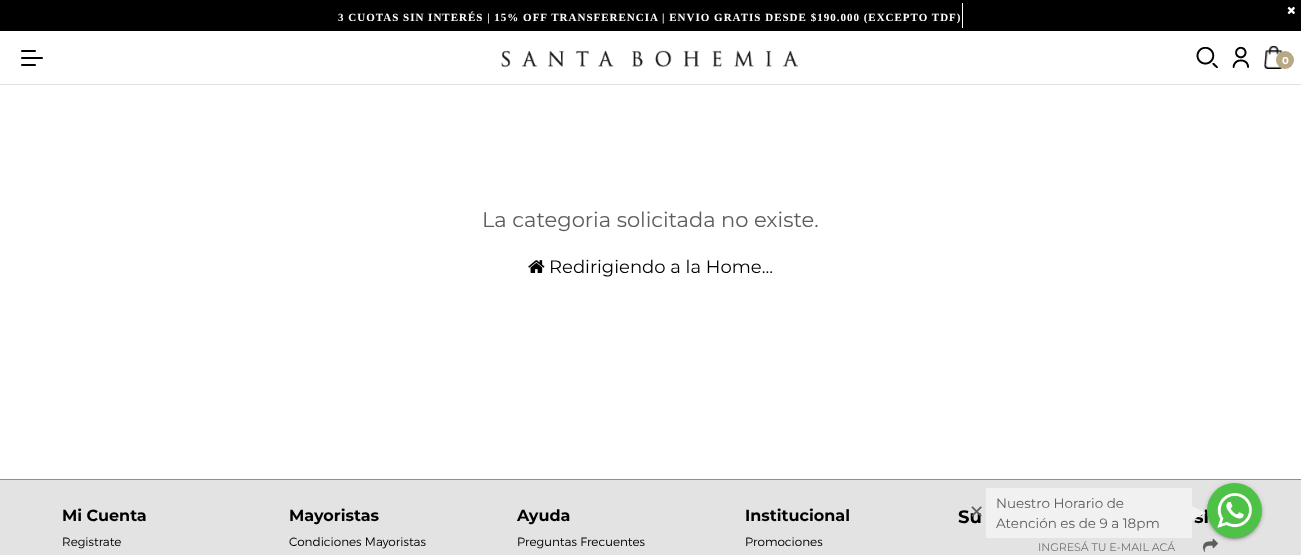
<svg xmlns="http://www.w3.org/2000/svg" width="1301" height="555" viewBox="0 0 1301 555">
  <rect width="100%" height="100%" fill="rgb(255,255,255)"/>
  <rect x="0" y="0" width="1301" height="31" fill="rgb(0,0,0)"/>
  <rect x="962" y="3" width="1" height="25" fill="rgb(255,255,255)"/>
  <text x="338" y="21" font-family="Liberation Serif" font-size="11" font-weight="bold" letter-spacing="1" fill="rgb(255,255,255)">3 CUOTAS SIN INTERÉS | 15% OFF TRANSFERENCIA | ENVIO GRATIS DESDE $190.000 (EXCEPTO TDF)</text>
  <image x="1287" y="6" width="8" height="9" href="pic1.png"/>
  <rect x="0" y="84" width="1301" height="1" fill="rgb(224,224,224)"/>
  <rect x="21" y="50" width="15" height="2" rx="1" fill="rgb(0,0,0)"/>
  <rect x="21" y="57" width="22" height="2" rx="1" fill="rgb(0,0,0)"/>
  <rect x="21" y="64" width="15" height="2" rx="1" fill="rgb(0,0,0)"/>
  <image x="501" y="50" width="297" height="18" href="pic2.png"/>
  <image x="1196" y="47" width="22" height="21" href="pic3.png"/>
  <image x="1232" y="46" width="17" height="22" href="pic4.png"/>
  <image x="1264" y="46" width="18" height="23" href="pic5.png"/>
  <circle cx="1285" cy="60" r="9" fill="rgb(184,169,130)"/>
  <text x="1282" y="64" font-family="Montserrat" font-size="10" font-weight="bold" fill="rgb(255,255,255)">0</text>
  <text x="482" y="227" font-family="Montserrat" font-size="21" fill="rgb(93,93,93)">La categoria solicitada no existe.</text>
  <image x="528" y="260" width="17" height="13" href="pic6.png"/>
  <text x="549" y="273" font-family="Montserrat" font-size="18" fill="rgb(0,0,0)">Redirigiendo a la Home...</text>
  <rect x="0" y="480" width="1301" height="75" fill="rgb(227,227,227)"/>
  <text x="958" y="523" font-family="Montserrat" font-size="18" font-weight="bold" fill="rgb(0,0,0)">Su</text>
  <text x="968" y="522" font-family="Montserrat" font-size="30" fill="rgb(93,93,93)">×</text>
  <rect x="986" y="488" width="206" height="50" fill="rgb(241,241,241)"/>
  <text x="996" y="508" font-family="Montserrat" font-size="13.5" fill="rgb(93,93,93)">Nuestro Horario de</text>
  <text x="1194" y="523" font-family="Montserrat" font-size="18" font-weight="bold" fill="rgb(0,0,0)">sl</text>
  <path d="M1192 520V506L1206 513Z" fill="rgb(241,241,241)"/>
  <text x="996" y="528" font-family="Montserrat" font-size="13.5" fill="rgb(93,93,93)">Atención es de 9 a 18pm</text>
  <rect x="0" y="479" width="1301" height="1" fill="rgb(144,144,144)"/>
  <image x="1203" y="538" width="15" height="14" href="pic8.png"/>
  <rect x="1207" y="484" width="55" height="55" rx="27.5" fill="rgba(0,0,0,0.2)" filter="blur(2.5px)"/>
  <rect x="1209" y="488" width="51" height="51" rx="25.5" fill="rgba(0,0,0,0.12)" filter="blur(0.5px)"/>
  <rect x="1207" y="485" width="55" height="55" rx="27.5" fill="rgba(0,0,0,0.14)" filter="blur(1px)"/>
  <circle cx="1234.5" cy="510.5" r="27.5" fill="rgb(77,194,71)"/>
  <image x="1217" y="493" width="35" height="35" href="pic7.png"/>
  <text x="62" y="521" font-family="Montserrat" font-size="16" font-weight="bold" fill="rgb(0,0,0)">Mi Cuenta</text>
  <text x="62" y="546" font-family="Montserrat" font-size="12" font-weight="300" fill="rgb(0,0,0)">Registrate</text>
  <text x="289" y="521" font-family="Montserrat" font-size="16" font-weight="bold" fill="rgb(0,0,0)">Mayoristas</text>
  <text x="289" y="546" font-family="Montserrat" font-size="12" font-weight="300" fill="rgb(0,0,0)">Condiciones Mayoristas</text>
  <text x="517" y="521" font-family="Montserrat" font-size="16" font-weight="bold" fill="rgb(0,0,0)">Ayuda</text>
  <text x="517" y="546" font-family="Montserrat" font-size="12" font-weight="300" fill="rgb(0,0,0)">Preguntas Frecuentes</text>
  <text x="745" y="521" font-family="Montserrat" font-size="16" font-weight="bold" fill="rgb(0,0,0)">Institucional</text>
  <text x="745" y="546" font-family="Montserrat" font-size="12" font-weight="300" fill="rgb(0,0,0)">Promociones</text>
  <text x="1038" y="551" font-family="Montserrat" font-size="11" fill="rgb(117,117,117)">INGRESÁ TU E-MAIL ACÁ</text>
</svg>
